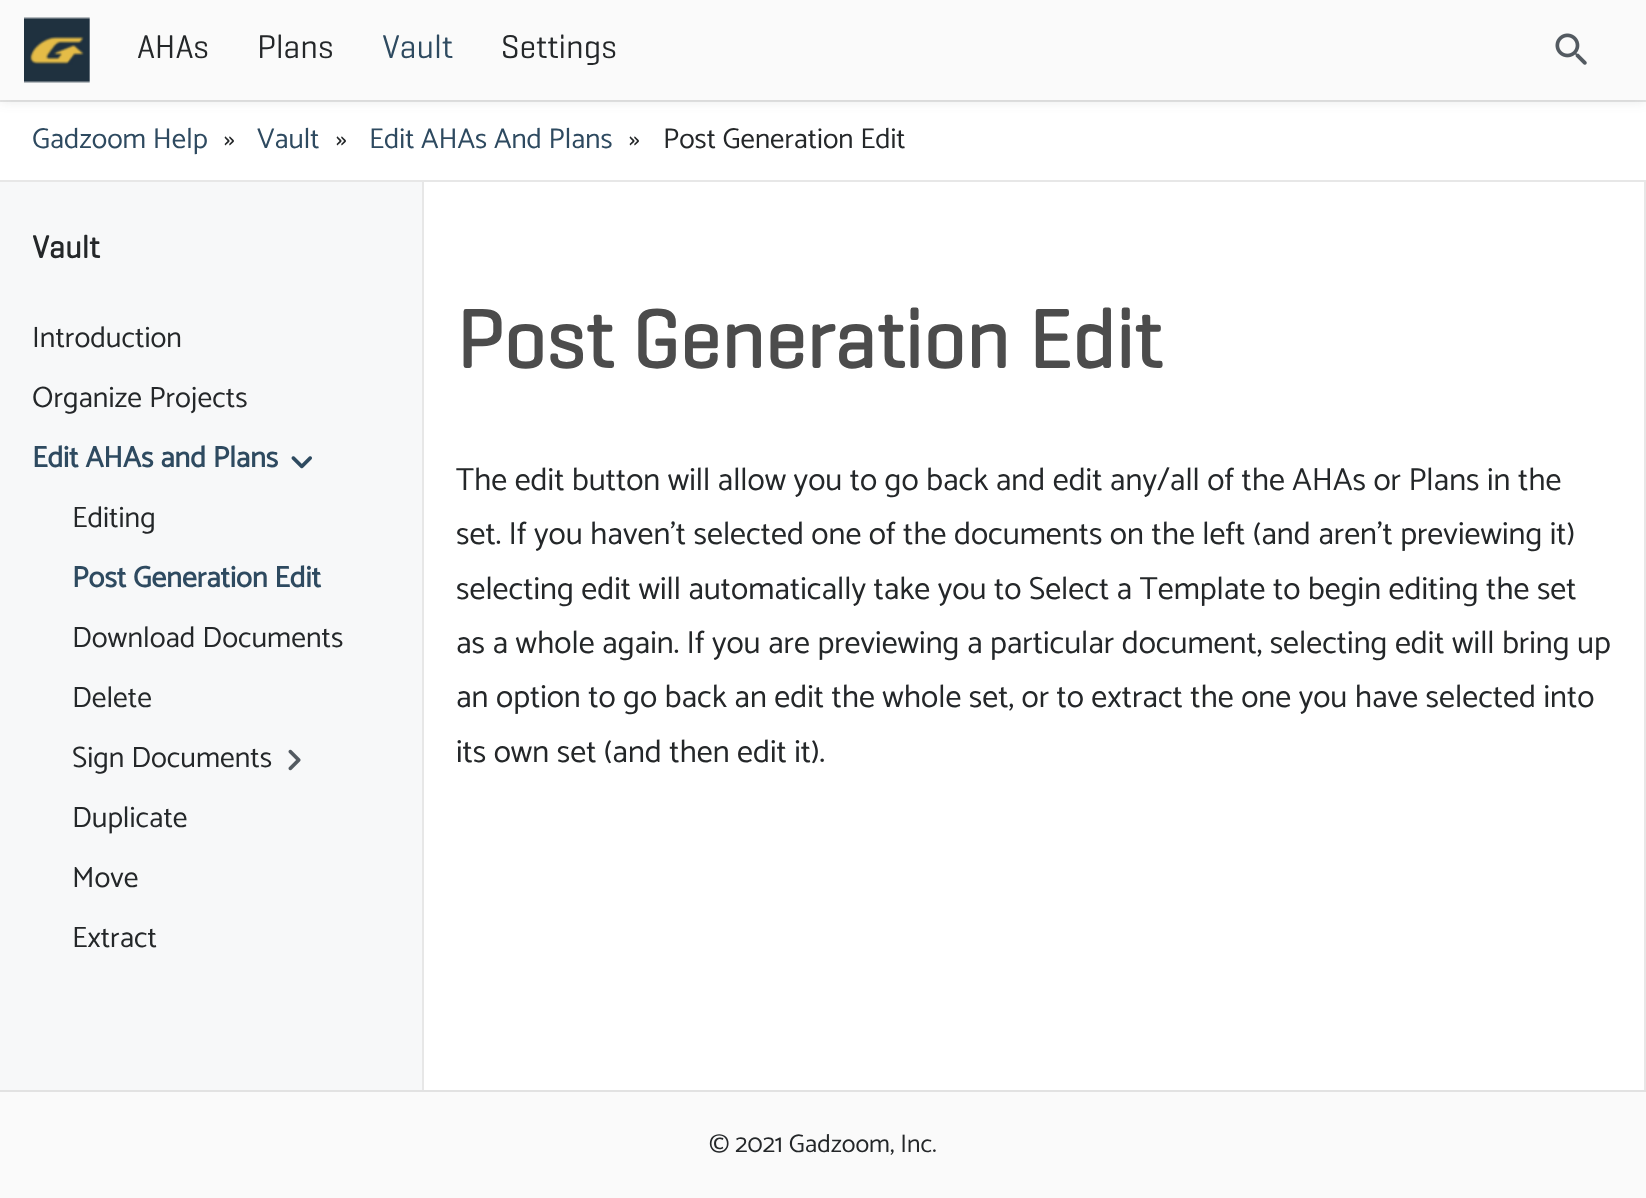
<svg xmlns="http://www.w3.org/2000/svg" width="1646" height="1198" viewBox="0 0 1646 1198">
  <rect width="100%" height="100%" fill="rgb(255,255,255)"/>
  <rect x="0" y="2" width="1646" height="100" fill="rgba(60,65,70,0.1)" filter="blur(6px)"/>
  <rect x="0" y="100" width="1646" height="2" fill="rgba(12,13,14,0.1)"/>
  <rect x="0" y="0" width="1646" height="100" fill="rgb(250,250,250)"/>
  <image x="24" y="17" width="66" height="66" href="pic1.png"/>
  <g font-family="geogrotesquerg" font-size="33.5" fill="rgb(36,39,41)">
    <text x="137" y="58">AHAs</text>
    <text x="257" y="58">Plans</text>
  </g>
  <text x="382" y="58" font-family="geogrotesquerg" font-size="33.5" fill="rgb(46,74,96)">Vault</text>
  <text x="501" y="58" font-family="geogrotesquerg" font-size="33.5" fill="rgb(36,39,41)">Settings</text>
  <image x="1555" y="33" width="32" height="32" href="pic2.png"/>
  <rect x="0" y="180" width="1646" height="2" fill="rgb(231,231,231)"/>
  <text x="32" y="148" font-family="Catamaran" font-size="28.75" font-weight="100" fill="rgb(46,74,96)">Gadzoom Help</text>
  <text x="224" y="148" font-family="Catamaran" font-size="28.75" font-weight="100" fill="rgb(36,39,41)">»</text>
  <text x="257" y="148" font-family="Catamaran" font-size="28.75" font-weight="100" fill="rgb(46,74,96)">Vault</text>
  <text x="336" y="148" font-family="Catamaran" font-size="28.75" font-weight="100" fill="rgb(36,39,41)">»</text>
  <text x="369" y="148" font-family="Catamaran" font-size="28.75" font-weight="100" fill="rgb(46,74,96)">Edit AHAs And Plans</text>
  <g font-family="Catamaran" font-size="28.75" font-weight="100" fill="rgb(36,39,41)">
    <text x="629" y="148">»</text>
    <text x="663" y="148">Post Generation Edit</text>
  </g>
  <rect x="0" y="182" width="422" height="908" fill="rgb(247,248,249)"/>
  <text x="32" y="258" font-family="geogrotesquerg" font-size="32" font-weight="bold" fill="rgb(36,39,41)">Vault</text>
  <g font-family="Catamaran" font-size="29.5" font-weight="100" fill="rgb(36,39,41)">
    <text x="32" y="347">Introduction</text>
    <text x="32" y="407">Organize Projects</text>
  </g>
  <text x="32" y="467" font-family="Catamaran" font-size="29.5" font-weight="bold" fill="rgb(46,74,96)">Edit AHAs and Plans</text>
  <image x="291" y="456" width="21" height="13" href="pic3.png"/>
  <text x="72" y="527" font-family="Catamaran" font-size="29.5" font-weight="100" fill="rgb(36,39,41)">Editing</text>
  <text x="72" y="587" font-family="Catamaran" font-size="29.5" font-weight="bold" fill="rgb(46,74,96)">Post Generation Edit</text>
  <g font-family="Catamaran" font-size="29.5" font-weight="100" fill="rgb(36,39,41)">
    <text x="72" y="647">Download Documents</text>
    <text x="72" y="707">Delete</text>
    <text x="72" y="767">Sign Documents</text>
  </g>
  <image x="288" y="749" width="13" height="22" href="pic4.png"/>
  <g font-family="Catamaran" font-size="29.5" font-weight="100" fill="rgb(36,39,41)">
    <text x="72" y="827">Duplicate</text>
    <text x="72" y="887">Move</text>
    <text x="72" y="947">Extract</text>
  </g>
  <rect x="1644" y="182" width="2" height="908" fill="rgb(231,231,231)"/>
  <rect x="422" y="182" width="2" height="908" fill="rgb(231,231,231)"/>
  <text x="456" y="368" font-family="geogrotesquerg" font-size="83.25" font-weight="bold" fill="rgb(76,76,76)">Post Generation Edit</text>
  <g font-family="Catamaran" font-size="32" font-weight="100" fill="rgb(36,39,41)">
    <text>
      <tspan x="456" y="490">The edit button will allow you to go back and edit any/all of the AHAs or Plans in the</tspan>
      <tspan x="456" y="544">set. If you haven’t selected one of the documents on the left (and aren’t previewing it)</tspan>
      <tspan x="456" y="599">selecting edit will automatically take you to Select a Template to begin editing the set</tspan>
      <tspan x="456" y="653">as a whole again. If you are previewing a particular document, selecting edit will bring up</tspan>
      <tspan x="456" y="707">an option to go back an edit the whole set, or to extract the one you have selected into</tspan>
      <tspan x="456" y="762">its own set (and then edit it).</tspan>
    </text>
  </g>
  <rect x="0" y="1092" width="1646" height="106" fill="rgb(250,250,250)"/>
  <rect x="0" y="1090" width="1646" height="2" fill="rgb(226,226,226)"/>
  <text x="709" y="1152" font-family="Catamaran" font-size="25.5" font-weight="100" fill="rgb(36,39,41)">© 2021 Gadzoom, Inc.</text>
</svg>
